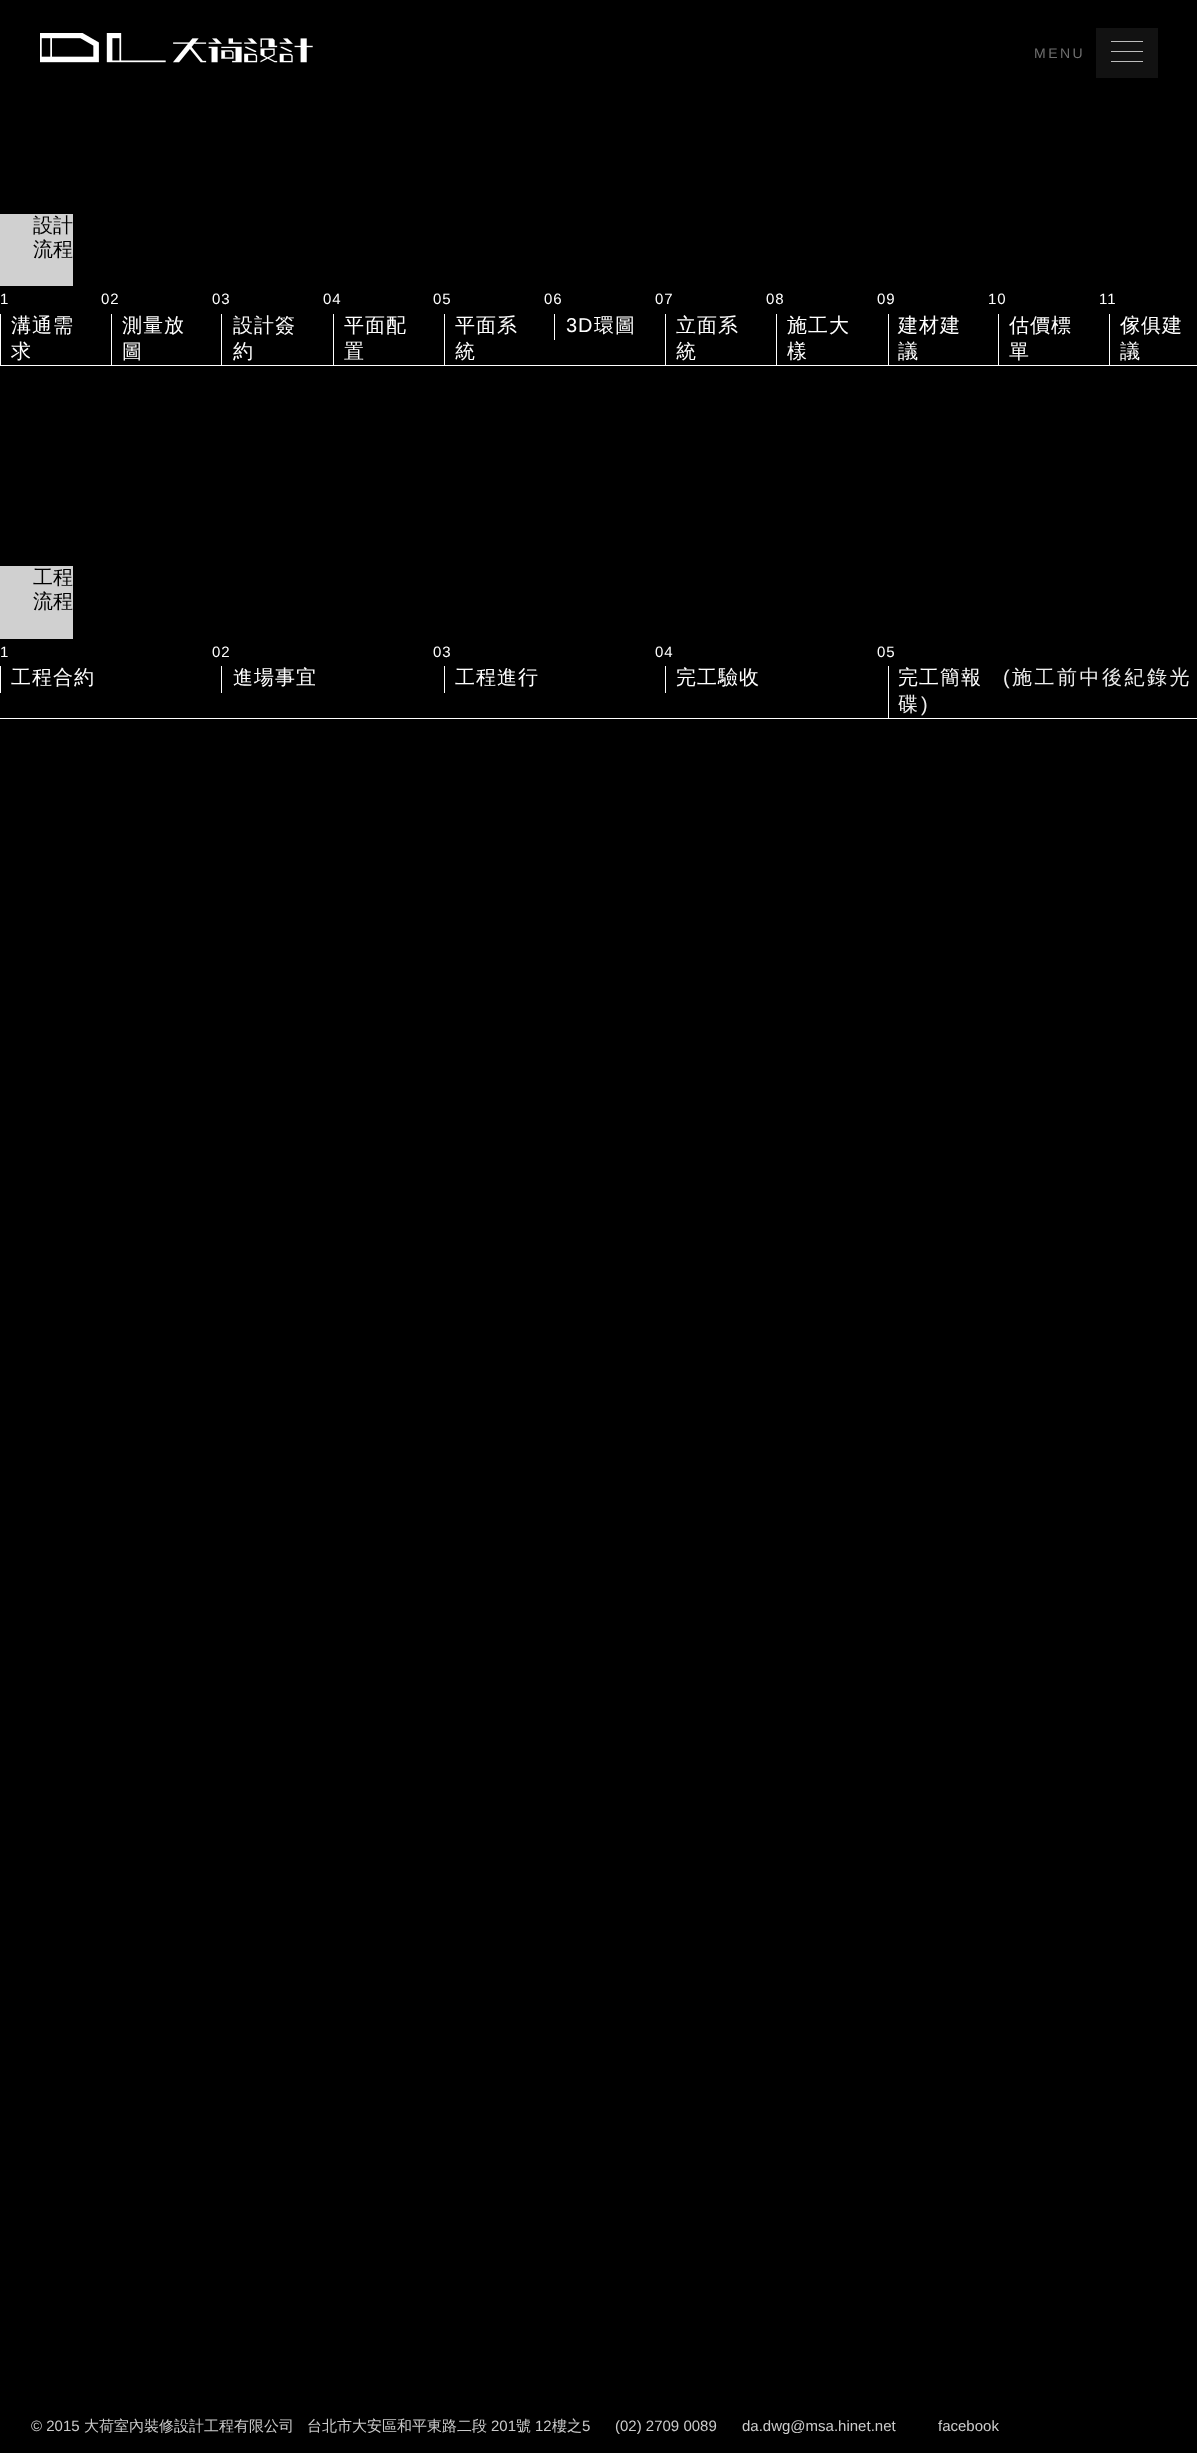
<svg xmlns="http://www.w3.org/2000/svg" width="1197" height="2453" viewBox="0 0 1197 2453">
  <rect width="100%" height="100%" fill="rgb(0,0,0)"/>
  <rect x="1096" y="28" width="62" height="50" fill="rgb(18,18,18)"/>
  <text x="1034" y="58" font-family="Liberation Sans" font-size="14" letter-spacing="2.5" fill="rgb(111,111,111)">MENU</text>
  <rect x="1111" y="41" width="32" height="1" fill="rgb(189,189,189)"/>
  <rect x="1111" y="51" width="32" height="1" fill="rgb(189,189,189)"/>
  <rect x="1111" y="61" width="32" height="1" fill="rgb(189,189,189)"/>
  <image x="40" y="33" width="273" height="30" href="pic1.png"/>
  <rect x="0" y="214" width="73" height="72" fill="rgb(208,208,208)"/>
  <g font-family="WenQuanYi Zen Hei" font-size="20" font-weight="500" fill="rgb(0,0,0)">
    <text>
      <tspan x="33" y="232">設計</tspan>
      <tspan x="33" y="256">流程</tspan>
    </text>
  </g>
  <rect x="0" y="314" width="1" height="52" fill="rgb(255,255,255)"/>
  <text x="0" y="304" font-family="Liberation Sans" font-size="15" letter-spacing="1" fill="rgb(255,255,255)">1</text>
  <g font-family="WenQuanYi Zen Hei" font-size="20" font-weight="500" letter-spacing="1" fill="rgb(255,255,255)">
    <text>
      <tspan x="11" y="332">溝通需</tspan>
      <tspan x="11" y="358">求</tspan>
    </text>
  </g>
  <rect x="111" y="314" width="1" height="52" fill="rgb(255,255,255)"/>
  <text x="101" y="304" font-family="Liberation Sans" font-size="15" letter-spacing="1" fill="rgb(255,255,255)">02</text>
  <g font-family="WenQuanYi Zen Hei" font-size="20" font-weight="500" letter-spacing="1" fill="rgb(255,255,255)">
    <text>
      <tspan x="122" y="332">測量放</tspan>
      <tspan x="122" y="358">圖</tspan>
    </text>
  </g>
  <rect x="221" y="314" width="1" height="52" fill="rgb(255,255,255)"/>
  <text x="212" y="304" font-family="Liberation Sans" font-size="15" letter-spacing="1" fill="rgb(255,255,255)">03</text>
  <g font-family="WenQuanYi Zen Hei" font-size="20" font-weight="500" letter-spacing="1" fill="rgb(255,255,255)">
    <text>
      <tspan x="233" y="332">設計簽</tspan>
      <tspan x="233" y="358">約</tspan>
    </text>
  </g>
  <rect x="333" y="314" width="1" height="52" fill="rgb(255,255,255)"/>
  <text x="323" y="304" font-family="Liberation Sans" font-size="15" letter-spacing="1" fill="rgb(255,255,255)">04</text>
  <g font-family="WenQuanYi Zen Hei" font-size="20" font-weight="500" letter-spacing="1" fill="rgb(255,255,255)">
    <text>
      <tspan x="344" y="332">平面配</tspan>
      <tspan x="344" y="358">置</tspan>
    </text>
  </g>
  <rect x="444" y="314" width="1" height="52" fill="rgb(255,255,255)"/>
  <text x="433" y="304" font-family="Liberation Sans" font-size="15" letter-spacing="1" fill="rgb(255,255,255)">05</text>
  <g font-family="WenQuanYi Zen Hei" font-size="20" font-weight="500" letter-spacing="1" fill="rgb(255,255,255)">
    <text>
      <tspan x="455" y="332">平面系</tspan>
      <tspan x="455" y="358">統</tspan>
    </text>
  </g>
  <rect x="554" y="314" width="1" height="26" fill="rgb(255,255,255)"/>
  <text x="544" y="304" font-family="Liberation Sans" font-size="15" letter-spacing="1" fill="rgb(255,255,255)">06</text>
  <text x="566" y="332" font-family="Liberation Sans" font-size="20" letter-spacing="1" fill="rgb(255,255,255)">3D</text>
  <text x="594" y="332" font-family="WenQuanYi Zen Hei" font-size="20" font-weight="500" letter-spacing="1" fill="rgb(255,255,255)">環圖</text>
  <rect x="665" y="314" width="1" height="52" fill="rgb(255,255,255)"/>
  <text x="655" y="304" font-family="Liberation Sans" font-size="15" letter-spacing="1" fill="rgb(255,255,255)">07</text>
  <g font-family="WenQuanYi Zen Hei" font-size="20" font-weight="500" letter-spacing="1" fill="rgb(255,255,255)">
    <text>
      <tspan x="676" y="332">立面系</tspan>
      <tspan x="676" y="358">統</tspan>
    </text>
  </g>
  <rect x="776" y="314" width="1" height="52" fill="rgb(255,255,255)"/>
  <text x="766" y="304" font-family="Liberation Sans" font-size="15" letter-spacing="1" fill="rgb(255,255,255)">08</text>
  <g font-family="WenQuanYi Zen Hei" font-size="20" font-weight="500" letter-spacing="1" fill="rgb(255,255,255)">
    <text>
      <tspan x="787" y="332">施工大</tspan>
      <tspan x="787" y="358">樣</tspan>
    </text>
  </g>
  <rect x="888" y="314" width="1" height="52" fill="rgb(255,255,255)"/>
  <text x="877" y="304" font-family="Liberation Sans" font-size="15" letter-spacing="1" fill="rgb(255,255,255)">09</text>
  <g font-family="WenQuanYi Zen Hei" font-size="20" font-weight="500" letter-spacing="1" fill="rgb(255,255,255)">
    <text>
      <tspan x="898" y="332">建材建</tspan>
      <tspan x="898" y="358">議</tspan>
    </text>
  </g>
  <rect x="998" y="314" width="1" height="52" fill="rgb(255,255,255)"/>
  <text x="988" y="304" font-family="Liberation Sans" font-size="15" letter-spacing="1" fill="rgb(255,255,255)">10</text>
  <g font-family="WenQuanYi Zen Hei" font-size="20" font-weight="500" letter-spacing="1" fill="rgb(255,255,255)">
    <text>
      <tspan x="1009" y="332">估價標</tspan>
      <tspan x="1009" y="358">單</tspan>
    </text>
  </g>
  <rect x="1109" y="314" width="1" height="52" fill="rgb(255,255,255)"/>
  <text x="1099" y="304" font-family="Liberation Sans" font-size="15" letter-spacing="1" fill="rgb(255,255,255)">11</text>
  <g font-family="WenQuanYi Zen Hei" font-size="20" font-weight="500" letter-spacing="1" fill="rgb(255,255,255)">
    <text>
      <tspan x="1120" y="332">傢俱建</tspan>
      <tspan x="1120" y="358">議</tspan>
    </text>
  </g>
  <rect x="0" y="365" width="1197" height="1" fill="rgb(255,255,255)"/>
  <rect x="0" y="566" width="73" height="73" fill="rgb(208,208,208)"/>
  <g font-family="WenQuanYi Zen Hei" font-size="20" font-weight="500" fill="rgb(0,0,0)">
    <text>
      <tspan x="33" y="584">工程</tspan>
      <tspan x="33" y="608">流程</tspan>
    </text>
  </g>
  <rect x="0" y="666" width="1" height="27" fill="rgb(255,255,255)"/>
  <text x="0" y="657" font-family="Liberation Sans" font-size="15" letter-spacing="1" fill="rgb(255,255,255)">1</text>
  <text x="11" y="684" font-family="WenQuanYi Zen Hei" font-size="20" font-weight="500" letter-spacing="1" fill="rgb(255,255,255)">工程合約</text>
  <rect x="221" y="666" width="1" height="27" fill="rgb(255,255,255)"/>
  <text x="212" y="657" font-family="Liberation Sans" font-size="15" letter-spacing="1" fill="rgb(255,255,255)">02</text>
  <text x="233" y="684" font-family="WenQuanYi Zen Hei" font-size="20" font-weight="500" letter-spacing="1" fill="rgb(255,255,255)">進場事宜</text>
  <rect x="444" y="666" width="1" height="27" fill="rgb(255,255,255)"/>
  <text x="433" y="657" font-family="Liberation Sans" font-size="15" letter-spacing="1" fill="rgb(255,255,255)">03</text>
  <text x="455" y="684" font-family="WenQuanYi Zen Hei" font-size="20" font-weight="500" letter-spacing="1" fill="rgb(255,255,255)">工程進行</text>
  <rect x="665" y="666" width="1" height="27" fill="rgb(255,255,255)"/>
  <text x="655" y="657" font-family="Liberation Sans" font-size="15" letter-spacing="1" fill="rgb(255,255,255)">04</text>
  <text x="676" y="684" font-family="WenQuanYi Zen Hei" font-size="20" font-weight="500" letter-spacing="1" fill="rgb(255,255,255)">完工驗收</text>
  <rect x="888" y="666" width="1" height="53" fill="rgb(255,255,255)"/>
  <text x="877" y="657" font-family="Liberation Sans" font-size="15" letter-spacing="1" fill="rgb(255,255,255)">05</text>
  <text x="898" y="684" font-family="WenQuanYi Zen Hei" font-size="20" font-weight="500" letter-spacing="1" fill="rgb(255,255,255)">完工簡報</text>
  <text x="1003" y="684" font-family="Liberation Sans" font-size="20" letter-spacing="2.5" fill="rgb(238,238,238)">(</text>
  <g font-family="WenQuanYi Zen Hei" font-size="20" font-weight="500" letter-spacing="2.5" fill="rgb(238,238,238)">
    <text x="1012" y="684">施工前中後紀錄光</text>
    <text x="898" y="711">碟</text>
  </g>
  <text x="921" y="711" font-family="Liberation Sans" font-size="20" letter-spacing="2.5" fill="rgb(238,238,238)">)</text>
  <rect x="0" y="718" width="1197" height="1" fill="rgb(255,255,255)"/>
  <text x="31" y="2431" font-family="Liberation Sans" font-size="15" fill="rgb(203,203,203)">© 2015</text>
  <g font-family="WenQuanYi Zen Hei" font-size="15" font-weight="500" fill="rgb(203,203,203)">
    <text x="84" y="2431">大荷室內裝修設計工程有限公司</text>
    <text x="307" y="2431">台北市大安區和平東路二段</text>
  </g>
  <text x="491" y="2431" font-family="Liberation Sans" font-size="15" fill="rgb(203,203,203)">201</text>
  <text x="516" y="2431" font-family="WenQuanYi Zen Hei" font-size="15" font-weight="500" fill="rgb(203,203,203)">號</text>
  <text x="535" y="2431" font-family="Liberation Sans" font-size="15" fill="rgb(203,203,203)">12</text>
  <text x="552" y="2431" font-family="WenQuanYi Zen Hei" font-size="15" font-weight="500" fill="rgb(203,203,203)">樓之</text>
  <g font-family="Liberation Sans" font-size="15" fill="rgb(203,203,203)">
    <text x="582" y="2431">5</text>
    <text x="615" y="2431">(02) 2709 0089</text>
    <text x="742" y="2431">da.dwg@msa.hinet.net</text>
    <text x="938" y="2431">facebook</text>
  </g>
</svg>
